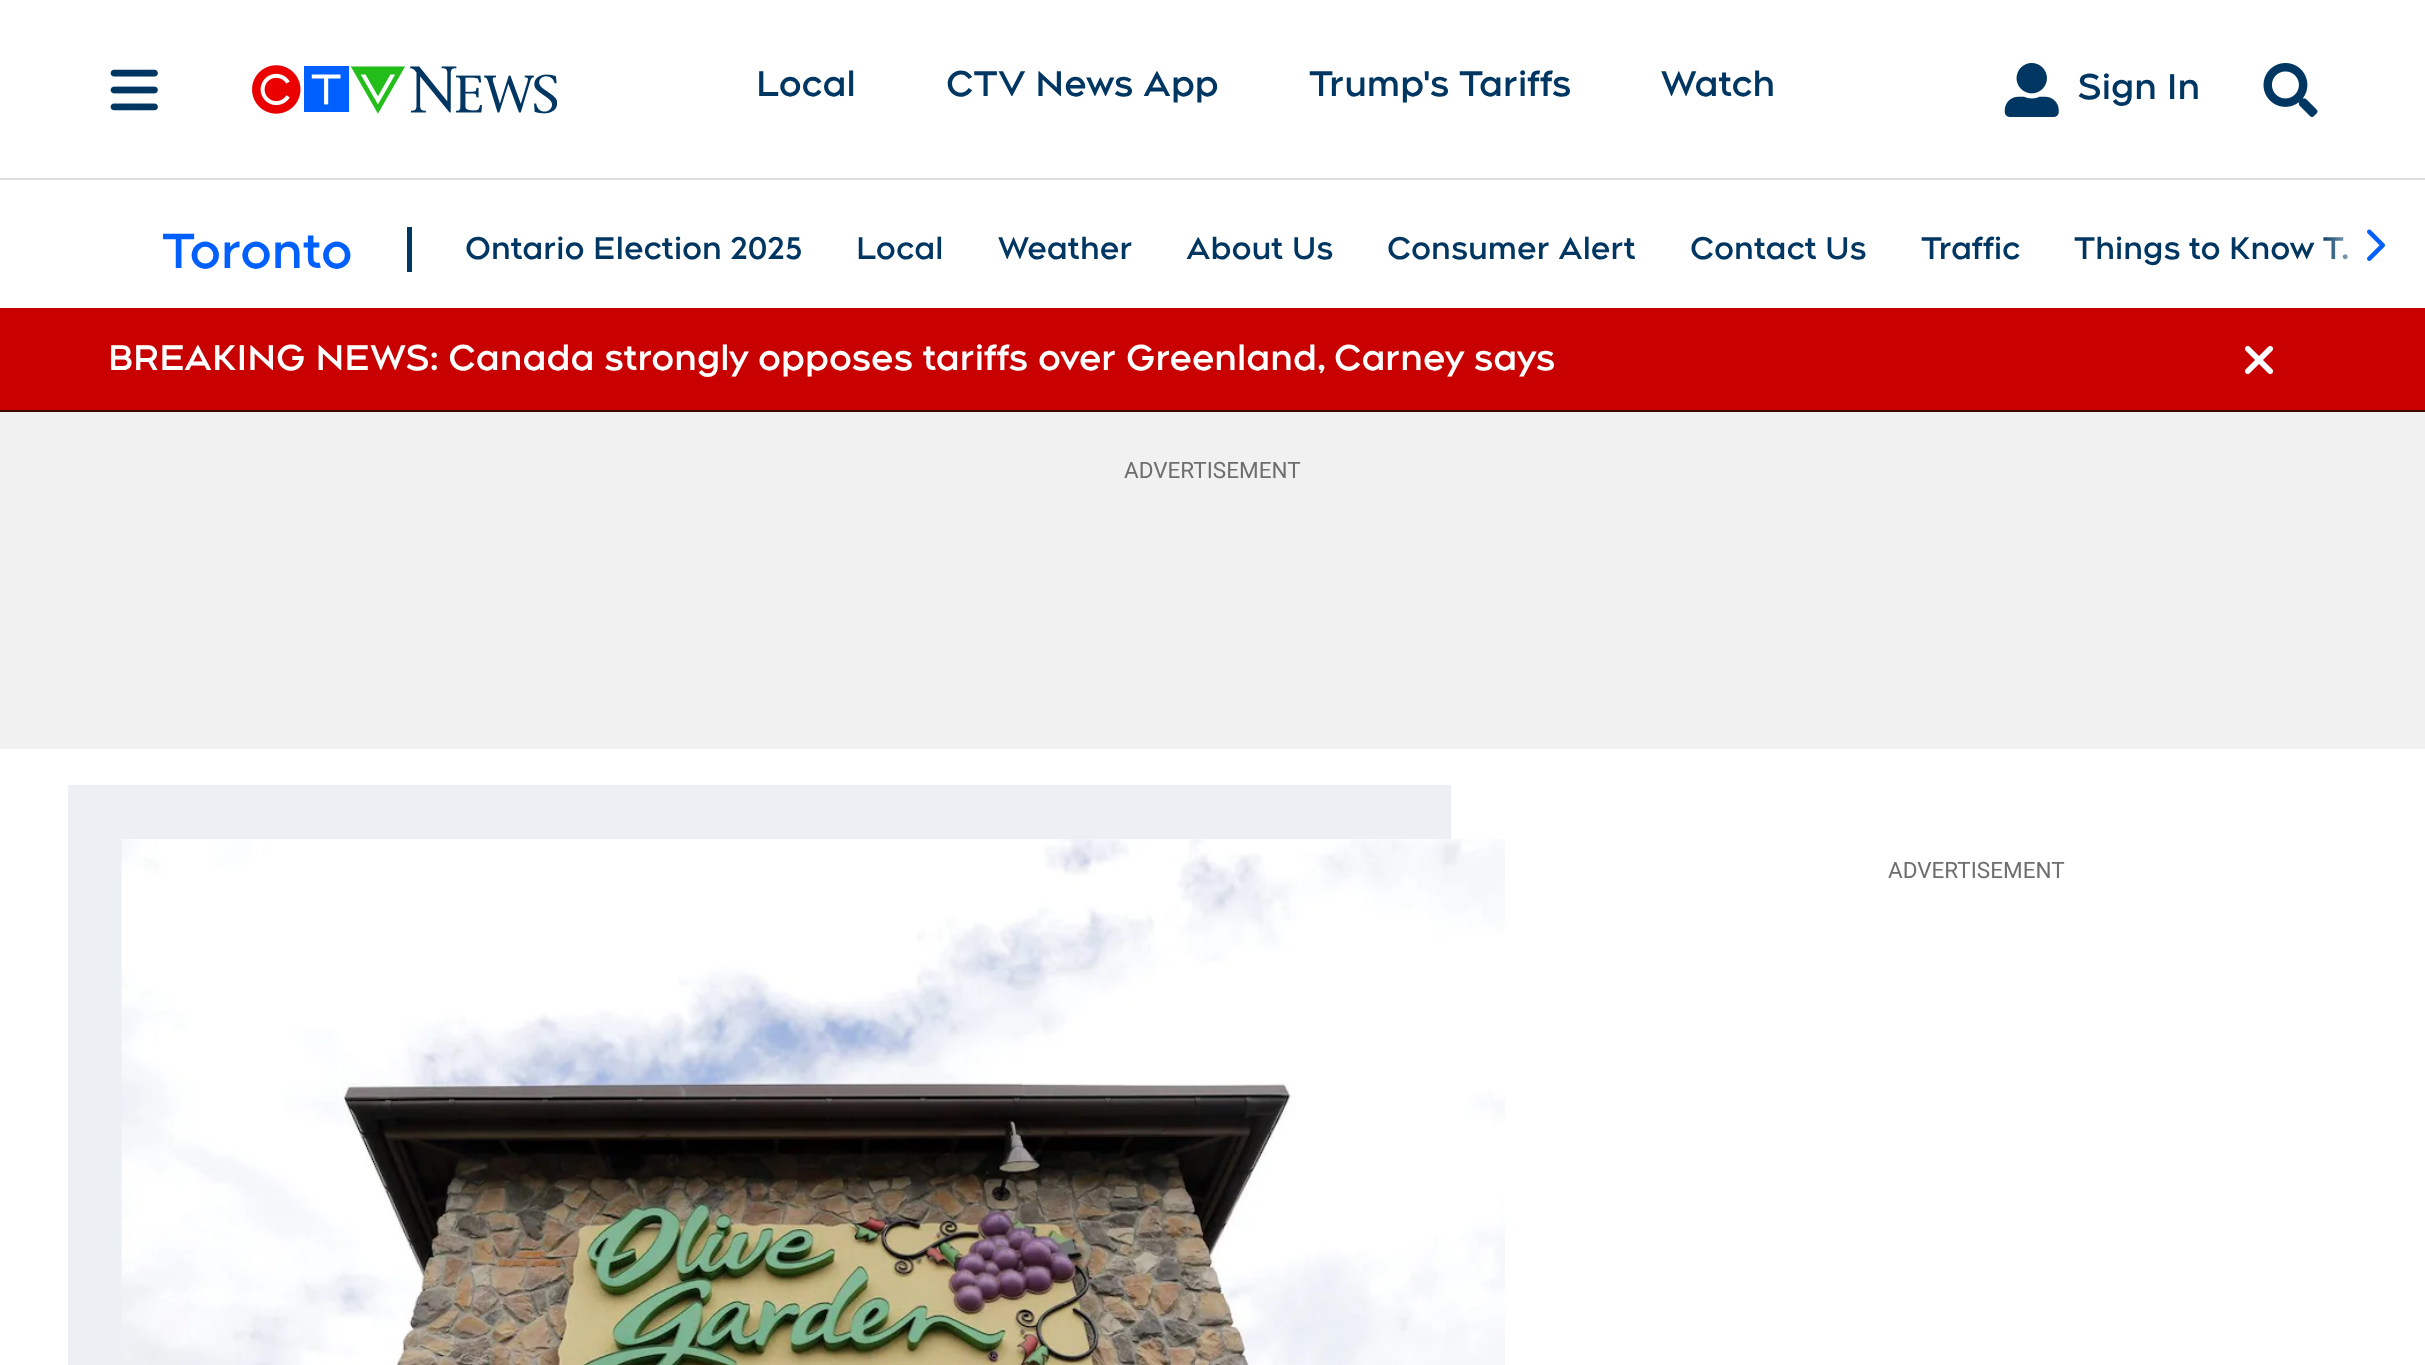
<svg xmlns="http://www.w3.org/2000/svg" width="2425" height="1365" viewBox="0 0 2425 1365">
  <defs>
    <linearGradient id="g1" gradientUnits="userSpaceOnUse" x1="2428" y1="244" x2="2320" y2="244"><stop offset="0.5" stop-color="rgb(255,255,255)"/><stop offset="1" stop-color="rgb(255,255,255)" stop-opacity="0"/></linearGradient>
  </defs>
  <rect width="100%" height="100%" fill="rgb(255,255,255)"/>
  <rect x="0" y="178" width="2425" height="2" fill="rgb(221,221,221)"/>
  <image x="110" y="69" width="48" height="42" href="pic1.png"/>
  <image x="252" y="65" width="305" height="49" href="pic2.png"/>
  <g font-family="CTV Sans" font-size="36" font-weight="bold" fill="rgb(0,54,98)">
    <text x="756" y="96">Local</text>
    <text x="946" y="96">CTV News App</text>
    <text x="1309" y="96">Trump's Tariffs</text>
    <text x="1661" y="96">Watch</text>
  </g>
  <image x="2004" y="63" width="55" height="54" href="pic3.png"/>
  <text x="2077" y="99" font-family="CTV Sans" font-size="36" font-weight="bold" fill="rgb(0,54,98)">Sign In</text>
  <image x="2263" y="63" width="55" height="54" href="pic4.png"/>
  <text x="162" y="268" font-family="CTV Sans" font-size="49.5" font-weight="bold" fill="rgb(0,95,255)">Toronto</text>
  <rect x="407" y="227" width="5" height="45" fill="rgb(0,54,98)"/>
  <g font-family="CTV Sans" font-size="31.5" font-weight="bold" fill="rgb(0,54,98)">
    <text x="465" y="259">Ontario Election 2025</text>
    <text x="856" y="259">Local</text>
    <text x="998" y="259">Weather</text>
    <text x="1186" y="259">About Us</text>
    <text x="1387" y="259">Consumer Alert</text>
    <text x="1690" y="259">Contact Us</text>
    <text x="1921" y="259">Traffic</text>
    <text x="2074" y="259">Things to Know T.</text>
  </g>
  <rect x="2320" y="216" width="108" height="56" rx="9" fill="url(#g1)"/>
  <image x="2367" y="229" width="18" height="32" href="pic5.png"/>
  <rect x="0" y="308" width="2425" height="102" fill="rgb(200,0,0)"/>
  <rect x="0" y="410" width="2425" height="2" fill="rgb(55,10,0)"/>
  <text x="108" y="370" font-family="CTV Sans" font-size="36" font-weight="bold" fill="rgb(255,255,255)">BREAKING NEWS: Canada strongly opposes tariffs over Greenland, Carney says</text>
  <image x="2245" y="345" width="28" height="29" href="pic6.png"/>
  <rect x="0" y="412" width="2425" height="337" fill="rgb(241,241,241)"/>
  <text x="1124" y="478" font-family="Roboto" font-size="22.5" fill="rgb(110,110,110)">ADVERTISEMENT</text>
  <path d="M68 785V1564H122V839H1451V785Z" fill="rgb(236,239,243)"/>
  <image x="121" y="839" width="1384" height="526" href="pic7.png"/>
  <text x="1888" y="878" font-family="Roboto" font-size="22.5" fill="rgb(110,110,110)">ADVERTISEMENT</text>
</svg>
